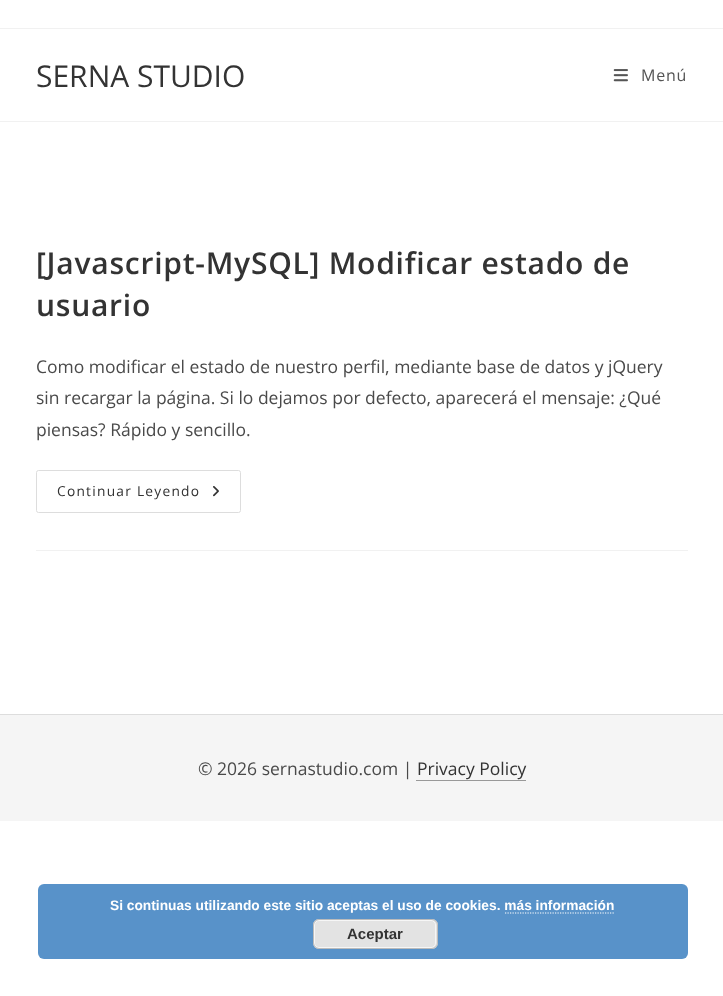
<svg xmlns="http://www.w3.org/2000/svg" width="723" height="996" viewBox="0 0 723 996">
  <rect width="100%" height="100%" fill="rgb(255,255,255)"/>
  <rect x="0" y="28" width="723" height="1" fill="rgb(241,241,241)"/>
  <rect x="0" y="121" width="723" height="1" fill="rgb(241,241,241)"/>
  <text x="36" y="87" font-family="Open Sans" font-size="30" fill="rgb(51,51,51)">SERNA STUDIO</text>
  <image x="613" y="69" width="15" height="13" href="pic1.png"/>
  <text x="641" y="81" font-family="Open Sans" font-size="16" letter-spacing="0.75" fill="rgb(85,85,85)">Menú</text>
  <rect x="36" y="550" width="652" height="1" fill="rgb(241,241,241)"/>
  <g font-family="Open Sans" font-size="30" font-weight="600" letter-spacing="0.75" fill="rgb(51,51,51)">
    <text>
      <tspan x="36" y="274">[Javascript-MySQL] Modificar estado de</tspan>
      <tspan x="36" y="316">usuario</tspan>
    </text>
  </g>
  <g font-family="Open Sans" font-size="17.5" fill="rgb(74,74,74)">
    <text>
      <tspan x="36" y="373">Como modificar el estado de nuestro perfil, mediante base de datos y jQuery</tspan>
      <tspan x="36" y="404">sin recargar la página. Si lo dejamos por defecto, aparecerá el mensaje: ¿Qué</tspan>
      <tspan x="36" y="436">piensas? Rápido y sencillo.</tspan>
    </text>
  </g>
  <rect x="36.5" y="470.5" width="204" height="42" rx="2" fill="none" stroke="rgb(221,221,221)"/>
  <text x="57" y="496" font-family="Open Sans" font-size="13.75" letter-spacing="1.25" fill="rgb(51,51,51)">Continuar Leyendo</text>
  <image x="213" y="486" width="6" height="11" href="pic2.png"/>
  <rect x="0" y="715" width="723" height="106" fill="rgb(245,245,245)"/>
  <rect x="0" y="714" width="723" height="1" fill="rgb(221,221,221)"/>
  <text x="198" y="775" font-family="Open Sans" font-size="17.5" fill="rgb(74,74,74)">© 2026 sernastudio.com |</text>
  <text x="417" y="775" font-family="Open Sans" font-size="17.5" fill="rgb(51,51,51)">Privacy Policy</text>
  <rect x="416" y="780" width="110" height="1" fill="rgb(153,153,153)"/>
  <rect x="38" y="884" width="650" height="75" rx="6" fill="rgb(88,146,201)"/>
  <text x="110" y="910" font-family="Liberation Sans" font-size="13.75" font-weight="bold" fill="rgb(255,255,255)">Si continuas utilizando este sitio aceptas el uso de cookies. más información</text>
  <path d="M505 913H615" fill="none" stroke="rgb(255,255,255)" stroke-width="1.2" stroke-dasharray="1.25 1.25"/>
  <rect x="313" y="919" width="125" height="30" rx="6" fill="rgb(227,227,227)"/>
  <rect x="314.5" y="920.5" width="121" height="27" rx="4.5" fill="none" stroke="rgb(246,246,246)"/>
  <rect x="313.5" y="919.5" width="124" height="29" rx="5.5" fill="none" stroke="rgb(187,187,187)"/>
  <text x="347" y="939" font-family="Liberation Sans" font-size="15" font-weight="bold" fill="rgb(51,51,51)">Aceptar</text>
</svg>
